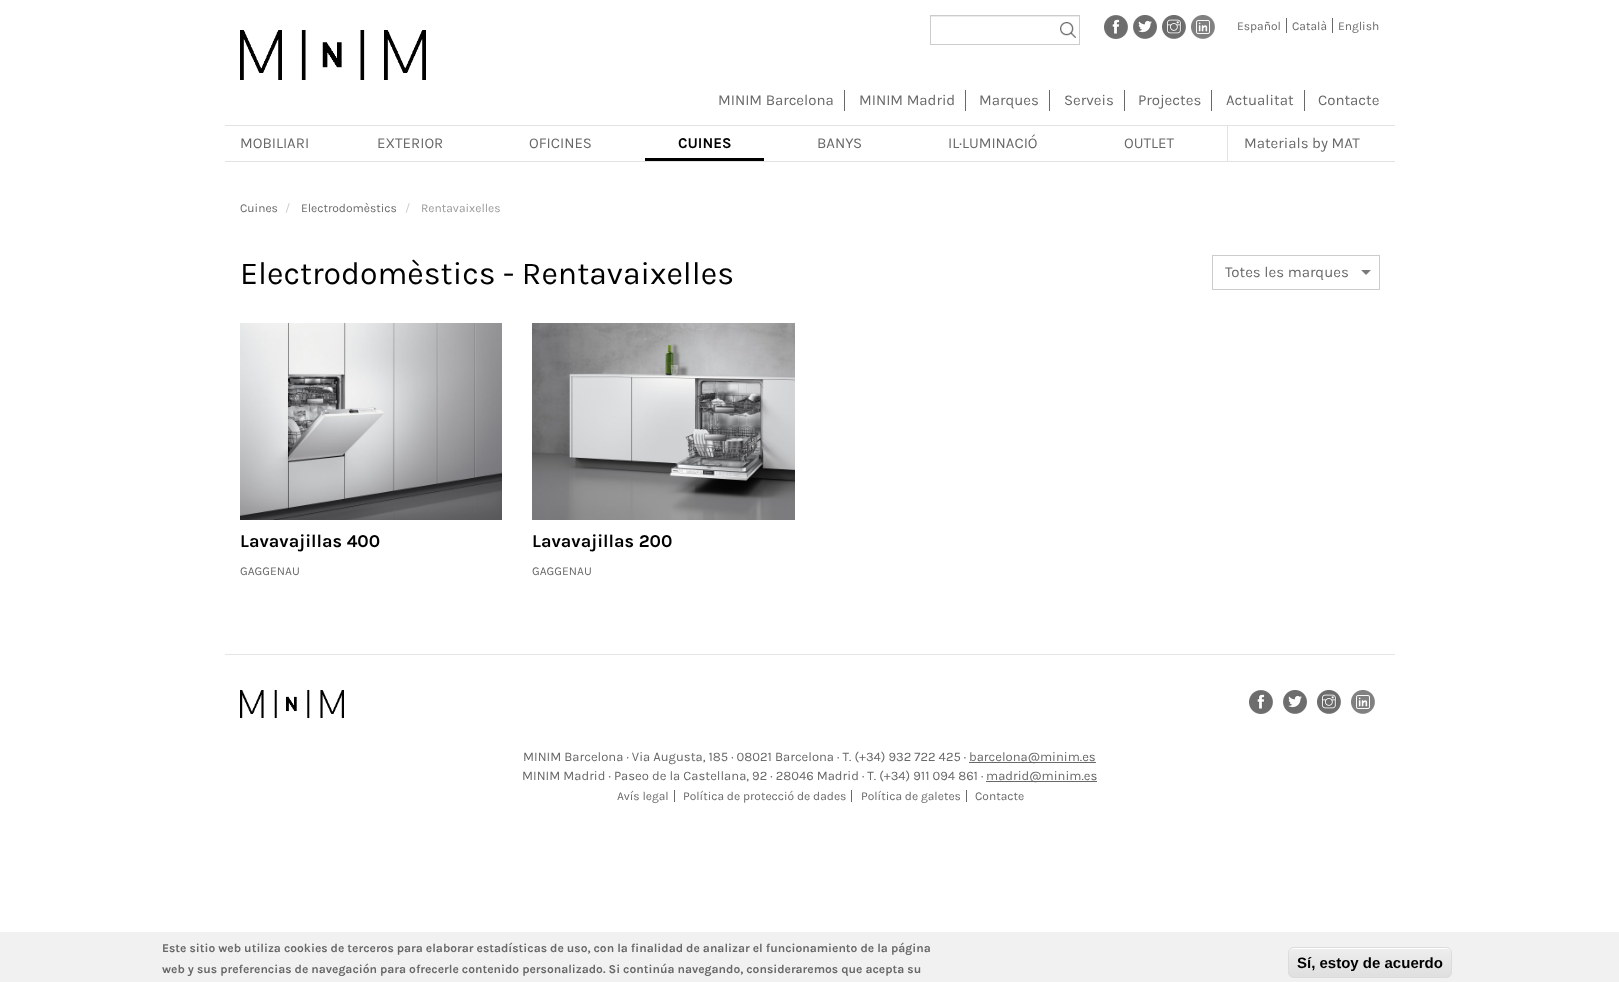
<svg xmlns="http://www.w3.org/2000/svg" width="1619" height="982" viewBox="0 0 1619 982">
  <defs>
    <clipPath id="clip1"><rect x="1225" y="265" width="124" height="15"/></clipPath>
    <clipPath id="clip2"><rect x="1288" y="947" width="164" height="31" rx="6"/></clipPath>
    <linearGradient id="g1" gradientUnits="userSpaceOnUse" x1="1370" y1="948" x2="1370" y2="977"><stop offset="0.05" stop-color="rgb(237,237,237)"/><stop offset="1" stop-color="rgb(223,223,223)"/></linearGradient>
  </defs>
  <rect width="100%" height="100%" fill="rgb(255,255,255)"/>
  <rect x="930.5" y="15.5" width="149" height="29" fill="none" stroke="rgb(204,204,204)"/>
  <image x="1060" y="22" width="16" height="16" href="pic1.png"/>
  <rect x="931" y="16" width="148" height="1" fill="rgb(236,236,236)"/>
  <image x="1104" y="15" width="24" height="24" href="pic2.png"/>
  <image x="1133" y="15" width="24" height="24" href="pic3.png"/>
  <image x="1162" y="15" width="24" height="24" href="pic4.png"/>
  <image x="1191" y="15" width="24" height="24" href="pic5.png"/>
  <rect x="1286" y="18" width="1" height="15" fill="rgb(104,104,104)"/>
  <text x="1237" y="30" font-family="Karla" font-size="12" fill="rgb(104,104,104)">Español</text>
  <rect x="1332" y="18" width="1" height="15" fill="rgb(104,104,104)"/>
  <g font-family="Karla" font-size="12" fill="rgb(104,104,104)">
    <text x="1292" y="30">Català</text>
    <text x="1338" y="30">English</text>
  </g>
  <image x="240" y="30" width="186" height="50" href="pic6.png"/>
  <rect x="844" y="90" width="1" height="21" fill="rgb(104,104,104)"/>
  <text x="718" y="105" font-family="Karla" font-size="15" fill="rgb(104,104,104)">MINIM Barcelona</text>
  <rect x="965" y="90" width="1" height="21" fill="rgb(104,104,104)"/>
  <text x="859" y="105" font-family="Karla" font-size="15" fill="rgb(104,104,104)">MINIM Madrid</text>
  <rect x="1049" y="90" width="1" height="21" fill="rgb(104,104,104)"/>
  <text x="979" y="105" font-family="Karla" font-size="15" fill="rgb(104,104,104)">Marques</text>
  <rect x="1124" y="90" width="1" height="21" fill="rgb(104,104,104)"/>
  <text x="1064" y="105" font-family="Karla" font-size="15" fill="rgb(104,104,104)">Serveis</text>
  <rect x="1211" y="90" width="1" height="21" fill="rgb(104,104,104)"/>
  <text x="1138" y="105" font-family="Karla" font-size="15" fill="rgb(104,104,104)">Projectes</text>
  <rect x="1304" y="90" width="1" height="21" fill="rgb(104,104,104)"/>
  <g font-family="Karla" font-size="15" fill="rgb(104,104,104)">
    <text x="1226" y="105">Actualitat</text>
    <text x="1318" y="105">Contacte</text>
  </g>
  <rect x="225" y="125" width="1170" height="1" fill="rgb(226,226,226)"/>
  <rect x="225" y="161" width="1170" height="1" fill="rgb(226,226,226)"/>
  <g font-family="Karla" font-size="15" fill="rgb(104,104,104)">
    <text x="240" y="148">MOBILIARI</text>
    <text x="377" y="148">EXTERIOR</text>
    <text x="529" y="148">OFICINES</text>
  </g>
  <rect x="645" y="158" width="119" height="3" fill="rgb(0,0,0)"/>
  <text x="678" y="148" font-family="Karla" font-size="15" font-weight="bold" fill="rgb(0,0,0)">CUINES</text>
  <g font-family="Karla" font-size="15" fill="rgb(104,104,104)">
    <text x="817" y="148">BANYS</text>
    <text x="948" y="148">IL·LUMINACIÓ</text>
    <text x="1124" y="148">OUTLET</text>
  </g>
  <rect x="1227" y="126" width="1" height="35" fill="rgb(226,226,226)"/>
  <text x="1244" y="148" font-family="Karla" font-size="15" fill="rgb(104,104,104)">Materials by MAT</text>
  <text x="240" y="212" font-family="Karla" font-size="12" fill="rgb(104,104,104)">Cuines</text>
  <text x="285" y="212" font-family="Karla" font-size="12" fill="rgb(204,204,204)">/</text>
  <text x="301" y="212" font-family="Karla" font-size="12" fill="rgb(104,104,104)">Electrodomèstics</text>
  <text x="405" y="212" font-family="Karla" font-size="12" fill="rgb(204,204,204)">/</text>
  <text x="421" y="212" font-family="Karla" font-size="12" fill="rgb(153,153,153)">Rentavaixelles</text>
  <text x="240" y="284" font-family="Karla" font-size="32" fill="rgb(0,0,0)">Electrodomèstics - Rentavaixelles</text>
  <image x="1361" y="270" width="10" height="5" href="pic7.png"/>
  <rect x="1212.5" y="255.5" width="167" height="34" fill="none" stroke="rgb(204,204,204)"/>
  <g clip-path="url(#clip1)">
    <text x="1225" y="277" font-family="Karla" font-size="15" fill="rgb(104,104,104)">Totes les marques</text>
  </g>
  <image x="240" y="323" width="262" height="197" href="pic8.png"/>
  <text x="240" y="547" font-family="Karla" font-size="18" font-weight="bold" fill="rgb(0,0,0)">Lavavajillas 400</text>
  <text x="240" y="575" font-family="Karla" font-size="12" fill="rgb(104,104,104)">GAGGENAU</text>
  <image x="532" y="323" width="263" height="197" href="pic9.png"/>
  <text x="532" y="547" font-family="Karla" font-size="18" font-weight="bold" fill="rgb(0,0,0)">Lavavajillas 200</text>
  <text x="532" y="575" font-family="Karla" font-size="12" fill="rgb(104,104,104)">GAGGENAU</text>
  <rect x="225" y="654" width="1170" height="1" fill="rgb(229,229,229)"/>
  <image x="240" y="690" width="104" height="28" href="pic10.png"/>
  <image x="1249" y="690" width="24" height="24" href="pic2.png"/>
  <image x="1283" y="690" width="24" height="24" href="pic3.png"/>
  <image x="1317" y="690" width="24" height="24" href="pic4.png"/>
  <image x="1351" y="690" width="24" height="24" href="pic5.png"/>
  <text x="523" y="761" font-family="Karla" font-size="13" fill="rgb(104,104,104)">MINIM Barcelona · Via Augusta, 185 · 08021 Barcelona · T. (+34) 932 722 425 ·</text>
  <rect x="969" y="762" width="127" height="1" fill="rgb(104,104,104)"/>
  <g font-family="Karla" font-size="13" fill="rgb(104,104,104)">
    <text x="969" y="761">barcelona@minim.es</text>
    <text x="522" y="780">MINIM Madrid · Paseo de la Castellana, 92 · 28046 Madrid · T. (+34) 911 094 861 ·</text>
  </g>
  <rect x="986" y="781" width="111" height="1" fill="rgb(104,104,104)"/>
  <text x="986" y="780" font-family="Karla" font-size="13" fill="rgb(104,104,104)">madrid@minim.es</text>
  <rect x="674" y="790" width="1" height="12" fill="rgb(104,104,104)"/>
  <text x="617" y="800" font-family="Karla" font-size="12" fill="rgb(104,104,104)">Avís legal</text>
  <rect x="851" y="790" width="1" height="12" fill="rgb(104,104,104)"/>
  <text x="683" y="800" font-family="Karla" font-size="12" fill="rgb(104,104,104)">Política de protecció de dades</text>
  <rect x="966" y="790" width="1" height="12" fill="rgb(104,104,104)"/>
  <g font-family="Karla" font-size="12" fill="rgb(104,104,104)">
    <text x="861" y="800">Política de galetes</text>
    <text x="975" y="800">Contacte</text>
  </g>
  <rect x="0" y="932" width="1619" height="50" fill="rgb(241,241,241)"/>
  <g font-family="Karla" font-size="12" font-weight="bold" fill="rgb(104,104,104)">
    <text>
      <tspan x="162" y="952">Este sitio web utiliza cookies de terceros para elaborar estadísticas de uso, con la finalidad de analizar el funcionamiento de la página</tspan>
      <tspan x="162" y="973">web y sus preferencias de navegación para ofrecerle contenido personalizado. Si continúa navegando, consideraremos que acepta su</tspan>
    </text>
  </g>
  <g clip-path="url(#clip2)">
    <rect x="1288" y="948" width="164" height="29" fill="url(#g1)"/>
  </g>
  <path d="M1294 949H1446C1449 949 1451 951 1451 954V953C1451 950 1449 948 1446 948H1294C1291 948 1289 950 1289 953V954C1289 951 1291 949 1294 949Z" fill="rgb(255,255,255)"/>
  <rect x="1288.5" y="947.5" width="163" height="30" rx="5.5" fill="none" stroke="rgb(220,220,220)"/>
  <text x="1297" y="968" font-family="Liberation Sans" font-size="15" font-weight="bold" fill="rgb(0,0,0)">Sí, estoy de acuerdo</text>
</svg>
